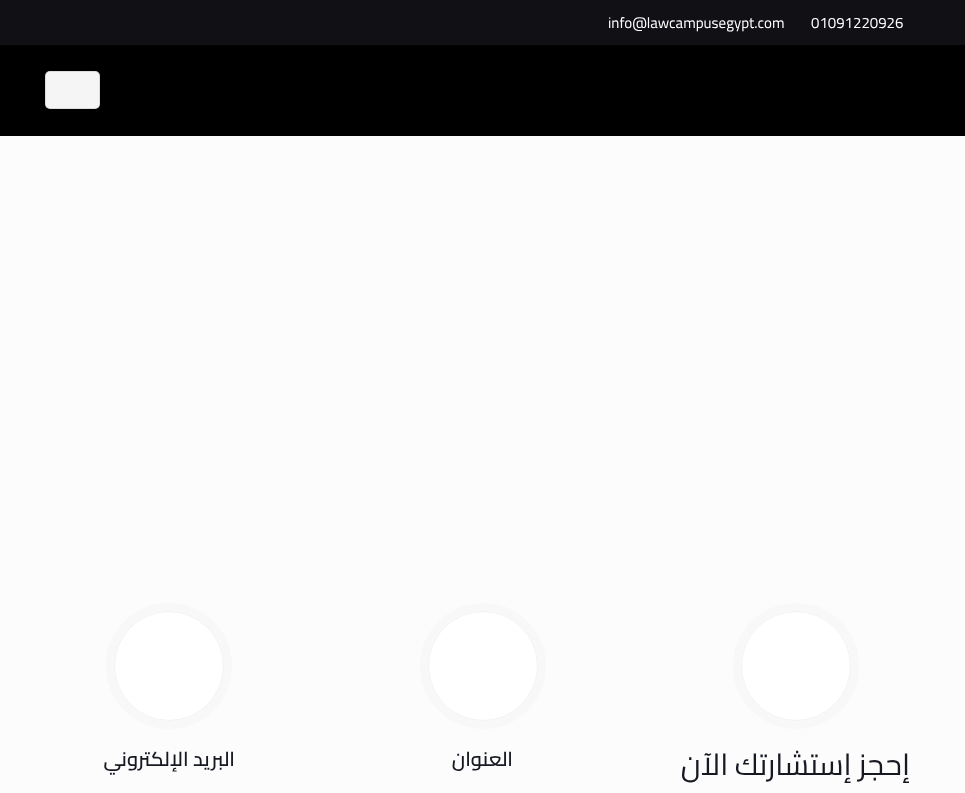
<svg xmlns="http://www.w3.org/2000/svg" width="965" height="793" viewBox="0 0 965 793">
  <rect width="100%" height="100%" fill="rgb(252,252,252)"/>
  <rect x="0" y="0" width="965" height="45" fill="rgb(16,16,21)"/>
  <g font-family="Cairo" font-size="15" fill="rgb(255,255,255)">
    <text x="811" y="28">01091220926</text>
    <text x="608" y="28">info@lawcampusegypt.com</text>
  </g>
  <rect x="0" y="45" width="965" height="91" fill="rgb(0,0,0)"/>
  <rect x="45" y="71" width="55" height="38" rx="5" fill="rgb(245,245,245)"/>
  <rect x="45.5" y="71.5" width="54" height="37" rx="4.5" fill="none" stroke="rgba(0,0,0,0.1)"/>
  <circle cx="796" cy="666" r="54.5" fill="rgb(255,255,255)" stroke="rgb(242,242,242)"/>
  <circle cx="796" cy="666" r="59" fill="none" stroke="rgb(248,248,248)" stroke-width="8"/>
  <text x="910" y="775" font-family="Cairo" font-size="30" direction="rtl" fill="rgb(22,25,34)">إحجز إستشارتك الآن</text>
  <circle cx="483" cy="666" r="54.5" fill="rgb(255,255,255)" stroke="rgb(242,242,242)"/>
  <circle cx="483" cy="666" r="59" fill="none" stroke="rgb(248,248,248)" stroke-width="8"/>
  <text x="513" y="766" font-family="Cairo" font-size="20" font-weight="600" direction="rtl" fill="rgb(22,25,34)">العنوان</text>
  <circle cx="169" cy="666" r="54.5" fill="rgb(255,255,255)" stroke="rgb(242,242,242)"/>
  <circle cx="169" cy="666" r="59" fill="none" stroke="rgb(248,248,248)" stroke-width="8"/>
  <text x="235" y="766" font-family="Cairo" font-size="20" font-weight="600" direction="rtl" fill="rgb(22,25,34)">البريد الإلكتروني</text>
</svg>
